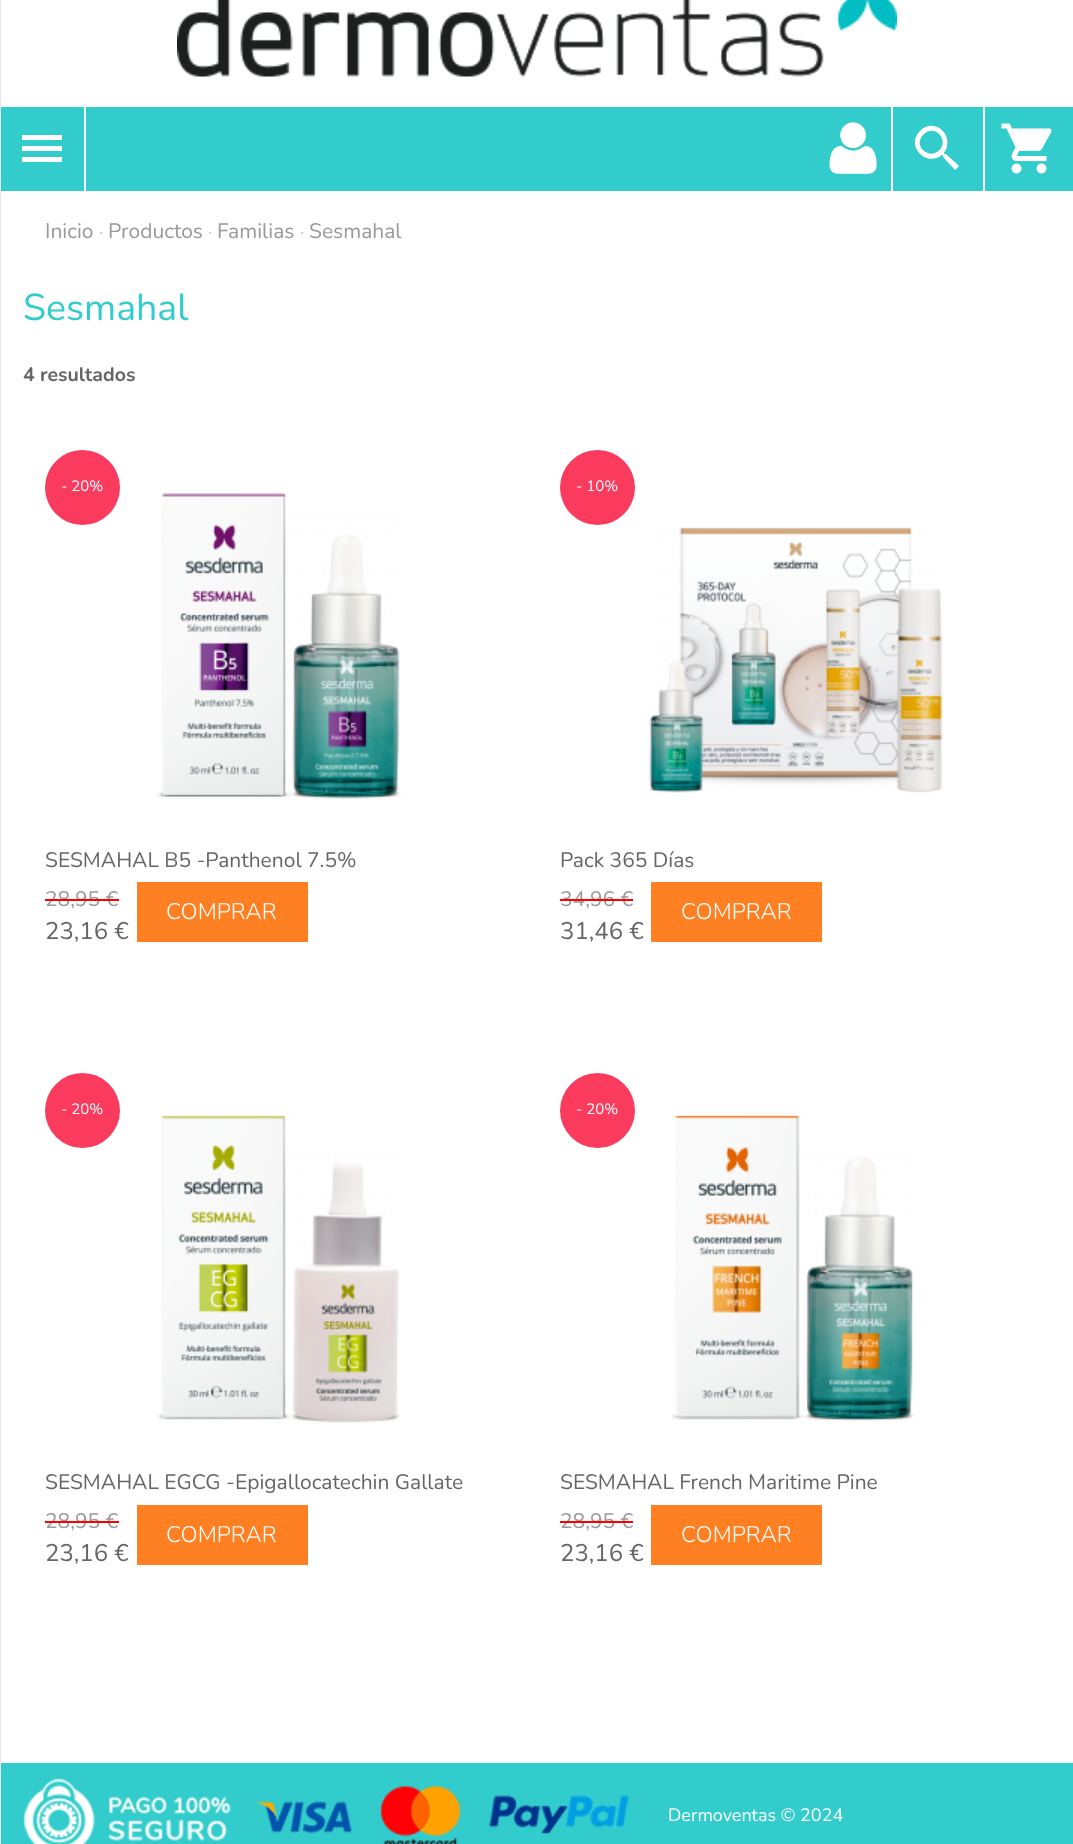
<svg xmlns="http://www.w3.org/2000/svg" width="1073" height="1844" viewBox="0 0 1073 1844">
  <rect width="100%" height="100%" fill="rgb(255,255,255)"/>
  <rect x="1" y="107" width="1072" height="84" fill="rgb(51,204,204)"/>
  <rect x="0" y="0" width="1" height="1844" fill="rgb(231,231,231)"/>
  <rect x="84" y="107" width="2" height="84" fill="rgb(255,255,255)"/>
  <path d="M22 135H62V140H22ZM22 151V146H62V151ZM22 162V157H62V162Z" fill="rgb(253,253,253)"/>
  <image x="829" y="122" width="48" height="52" href="pic1.png"/>
  <rect x="983" y="107" width="2" height="84" fill="rgb(255,255,255)"/>
  <rect x="891" y="107" width="2" height="84" fill="rgb(255,255,255)"/>
  <path d="M923 150C934 161 950 145 939 134C929 124 913 140 923 150ZM946 154L959 166L955 170L943 157V155H942C926 168 905 145 920 131C935 116 956 137 944 153V154Z" fill="rgb(255,255,255)"/>
  <image x="1001" y="123" width="51" height="51" href="pic2.png"/>
  <image x="177" y="0" width="720" height="77" href="pic3.png"/>
  <text x="45" y="238" font-family="Nunito" font-size="21" fill="rgb(153,153,153)">Inicio</text>
  <text x="99" y="238" font-family="Nunito" font-size="19.5" fill="rgb(204,204,204)">·</text>
  <text x="108" y="238" font-family="Nunito" font-size="21" fill="rgb(153,153,153)">Productos</text>
  <text x="208" y="238" font-family="Nunito" font-size="19.5" fill="rgb(204,204,204)">·</text>
  <text x="217" y="238" font-family="Nunito" font-size="21" fill="rgb(153,153,153)">Familias</text>
  <text x="300" y="238" font-family="Nunito" font-size="19.5" fill="rgb(204,204,204)">·</text>
  <text x="309" y="238" font-family="Nunito" font-size="21" fill="rgb(153,153,153)">Sesmahal</text>
  <text x="23" y="320" font-family="Nunito" font-size="37.5" fill="rgb(51,204,204)">Sesmahal</text>
  <text x="23" y="381" font-family="Nunito" font-size="19.5" font-weight="bold" fill="rgb(102,102,102)">4 resultados</text>
  <circle cx="82.5" cy="487.5" r="37.5" fill="rgb(250,59,94)"/>
  <text x="61" y="491" font-family="Nunito" font-size="15" fill="rgb(255,255,255)">- 20%</text>
  <image x="156" y="493" width="245" height="306" href="pic4.png"/>
  <text x="45" y="867" font-family="Nunito" font-size="21" fill="rgb(102,102,102)">SESMAHAL B5 -Panthenol 7.5%</text>
  <text x="45" y="906" font-family="Nunito" font-size="21" fill="rgb(153,153,153)">28,95 €</text>
  <rect x="45" y="899" width="74" height="2" fill="rgb(255,0,0)"/>
  <text x="45" y="939" font-family="Nunito" font-size="24" fill="rgb(102,102,102)">23,16 €</text>
  <rect x="137" y="882" width="171" height="60" fill="rgb(255,128,35)"/>
  <text x="166" y="919" font-family="Nunito" font-size="22.5" font-weight="300" fill="rgb(255,255,255)">COMPRAR</text>
  <circle cx="597.5" cy="487.5" r="37.5" fill="rgb(250,59,94)"/>
  <text x="576" y="491" font-family="Nunito" font-size="15" fill="rgb(255,255,255)">- 10%</text>
  <image x="649" y="527" width="294" height="266" href="pic5.png"/>
  <text x="560" y="867" font-family="Nunito" font-size="21" fill="rgb(102,102,102)">Pack 365 Días</text>
  <text x="560" y="906" font-family="Nunito" font-size="21" fill="rgb(153,153,153)">34,96 €</text>
  <rect x="560" y="899" width="73" height="2" fill="rgb(255,0,0)"/>
  <text x="560" y="939" font-family="Nunito" font-size="24" fill="rgb(102,102,102)">31,46 €</text>
  <rect x="651" y="882" width="171" height="60" fill="rgb(255,128,35)"/>
  <text x="681" y="919" font-family="Nunito" font-size="22.5" font-weight="300" fill="rgb(255,255,255)">COMPRAR</text>
  <circle cx="82.5" cy="1110.5" r="37.5" fill="rgb(250,59,94)"/>
  <text x="61" y="1114" font-family="Nunito" font-size="15" fill="rgb(255,255,255)">- 20%</text>
  <image x="156" y="1115" width="245" height="308" href="pic6.png"/>
  <text x="45" y="1489" font-family="Nunito" font-size="21" fill="rgb(102,102,102)">SESMAHAL EGCG -Epigallocatechin Gallate</text>
  <text x="45" y="1528" font-family="Nunito" font-size="21" fill="rgb(153,153,153)">28,95 €</text>
  <rect x="45" y="1521" width="74" height="2" fill="rgb(255,0,0)"/>
  <text x="45" y="1561" font-family="Nunito" font-size="24" fill="rgb(102,102,102)">23,16 €</text>
  <rect x="137" y="1505" width="171" height="60" fill="rgb(255,128,35)"/>
  <text x="166" y="1542" font-family="Nunito" font-size="22.5" font-weight="300" fill="rgb(255,255,255)">COMPRAR</text>
  <circle cx="597.5" cy="1110.5" r="37.5" fill="rgb(250,59,94)"/>
  <text x="576" y="1114" font-family="Nunito" font-size="15" fill="rgb(255,255,255)">- 20%</text>
  <image x="671" y="1115" width="243" height="306" href="pic7.png"/>
  <text x="560" y="1489" font-family="Nunito" font-size="21" fill="rgb(102,102,102)">SESMAHAL French Maritime Pine</text>
  <text x="560" y="1528" font-family="Nunito" font-size="21" fill="rgb(153,153,153)">28,95 €</text>
  <rect x="560" y="1521" width="73" height="2" fill="rgb(255,0,0)"/>
  <text x="560" y="1561" font-family="Nunito" font-size="24" fill="rgb(102,102,102)">23,16 €</text>
  <rect x="651" y="1505" width="171" height="60" fill="rgb(255,128,35)"/>
  <text x="681" y="1542" font-family="Nunito" font-size="22.5" font-weight="300" fill="rgb(255,255,255)">COMPRAR</text>
  <rect x="1" y="1763" width="1072" height="81" fill="rgb(51,204,204)"/>
  <image x="23" y="1778" width="606" height="66" href="pic8.png"/>
  <text x="668" y="1821" font-family="Nunito" font-size="18" fill="rgb(255,255,255)">Dermoventas © 2024</text>
</svg>
